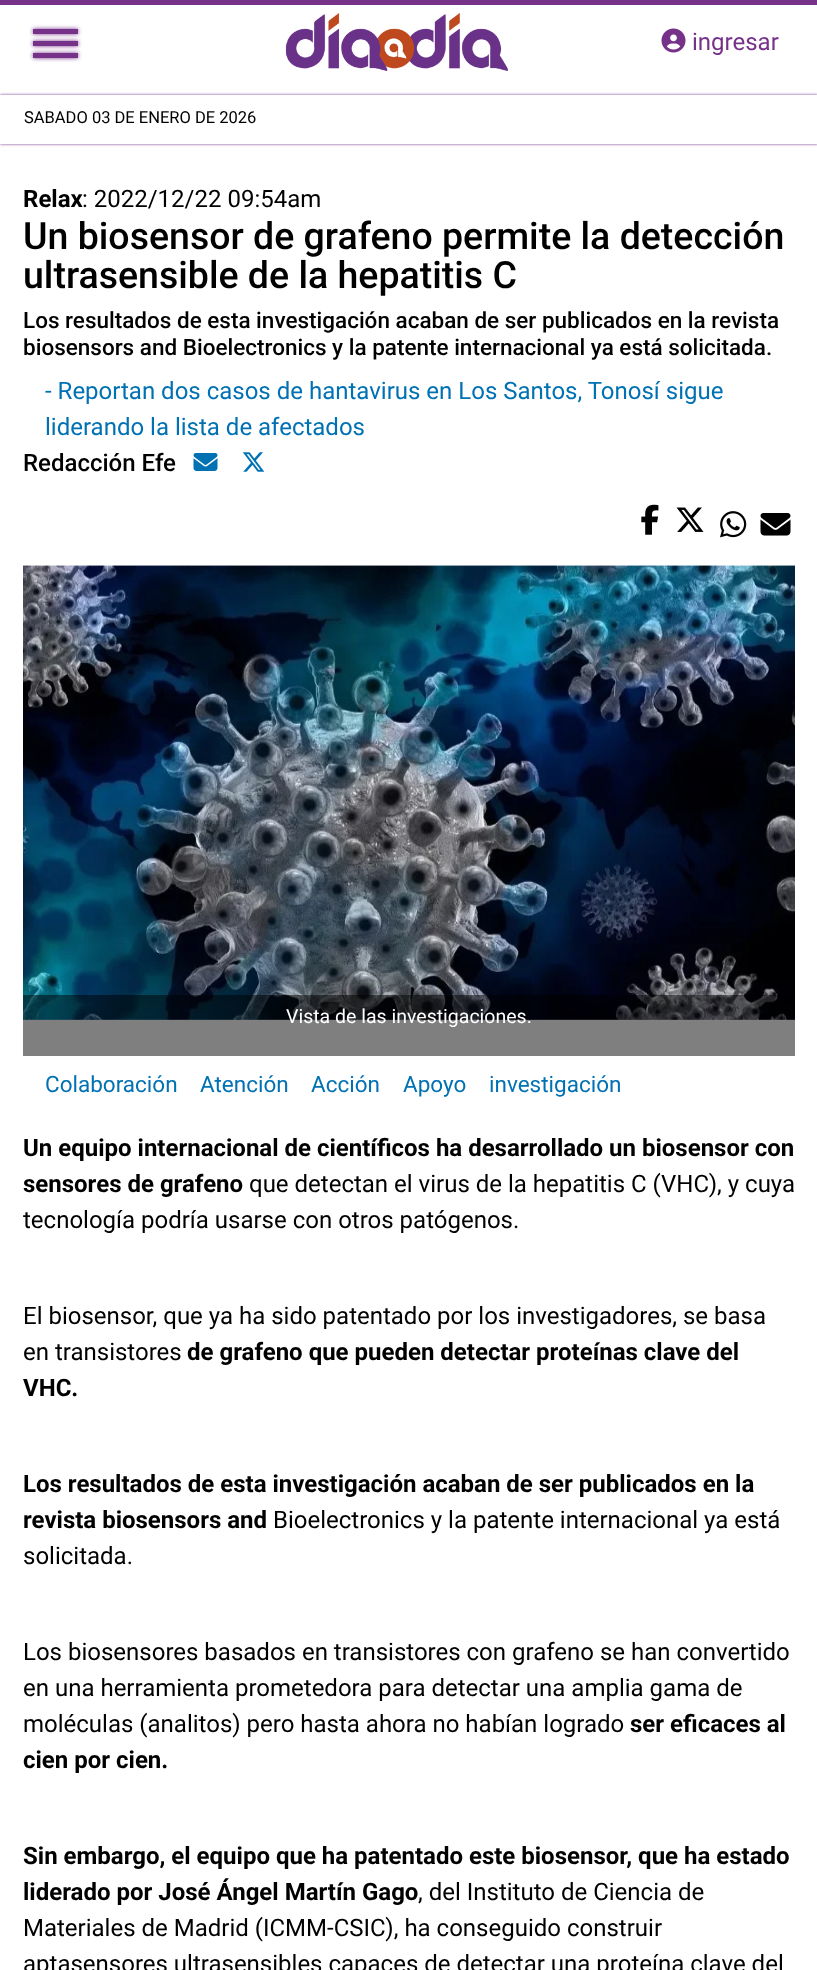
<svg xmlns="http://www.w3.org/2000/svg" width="817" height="1970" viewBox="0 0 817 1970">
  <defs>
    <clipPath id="clip1"><path d="M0 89H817V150H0ZM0 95H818V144H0Z" clip-rule="evenodd"/></clipPath>
  </defs>
  <rect width="100%" height="100%" fill="rgb(255,255,255)"/>
  <rect x="0" y="0" width="817" height="5" fill="rgb(118,50,137)"/>
  <rect x="33" y="29" width="45" height="5" fill="rgb(118,50,137)" filter="blur(2px)"/>
  <rect x="33" y="29" width="45" height="5" fill="rgb(118,50,137)"/>
  <rect x="33" y="41" width="45" height="5" fill="rgb(118,50,137)" filter="blur(2px)"/>
  <rect x="33" y="41" width="45" height="5" fill="rgb(118,50,137)"/>
  <rect x="33" y="53" width="45" height="5" fill="rgb(118,50,137)" filter="blur(2px)"/>
  <rect x="33" y="53" width="45" height="5" fill="rgb(118,50,137)"/>
  <image x="285" y="13" width="223" height="58" href="pic1.png"/>
  <image x="661" y="28" width="25" height="25" href="pic2.png"/>
  <text x="692" y="50" font-family="Roboto" font-size="24" fill="rgb(118,50,137)">ingresar</text>
  <g clip-path="url(#clip1)">
    <rect x="0" y="95" width="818" height="49" fill="rgb(118,50,137)" filter="blur(1.5px)"/>
  </g>
  <text x="24" y="123" font-family="Roboto" font-size="16.5" fill="rgb(0,0,0)">SABADO 03 DE ENERO DE 2026</text>
  <text x="23" y="207" font-family="Roboto" font-size="24" font-weight="bold" fill="rgb(0,0,0)">Relax</text>
  <text x="82" y="207" font-family="Roboto" font-size="24" fill="rgb(0,0,0)">: 2022/12/22 09:54am</text>
  <g font-family="Roboto" font-size="37.5" font-weight="500" fill="rgb(0,0,0)">
    <text>
      <tspan x="23" y="249">Un biosensor de grafeno permite la detección</tspan>
      <tspan x="23" y="288">ultrasensible de la hepatitis C</tspan>
    </text>
  </g>
  <g font-family="Roboto" font-size="22.5" font-weight="500" fill="rgb(0,0,0)">
    <text>
      <tspan x="23" y="328">Los resultados de esta investigación acaban de ser publicados en la revista</tspan>
      <tspan x="23" y="355">biosensors and Bioelectronics y la patente internacional ya está solicitada.</tspan>
    </text>
  </g>
  <g font-family="Roboto" font-size="24" fill="rgb(0,113,179)">
    <text>
      <tspan x="45" y="399">- Reportan dos casos de hantavirus en Los Santos, Tonosí sigue</tspan>
      <tspan x="45" y="435">liderando la lista de afectados</tspan>
    </text>
  </g>
  <text x="23" y="471" font-family="Roboto" font-size="24" font-weight="500" fill="rgb(0,0,0)">Redacción Efe</text>
  <image x="193" y="453" width="25" height="18" href="pic3.png"/>
  <image x="242" y="452" width="23" height="20" href="pic4.png"/>
  <image x="641" y="504" width="18" height="31" href="pic5.png"/>
  <image x="676" y="507" width="28" height="25" href="pic6.png"/>
  <image x="720" y="511" width="27" height="27" href="pic7.png"/>
  <image x="760" y="513" width="31" height="23" href="pic8.png"/>
  <image x="23" y="565" width="772" height="455" href="pic9.png"/>
  <rect x="23" y="995" width="772" height="61" fill="rgba(0,0,0,0.5)"/>
  <text x="286" y="1023" font-family="Roboto" font-size="19.5" fill="rgb(255,255,255)">Vista de las investigaciones.</text>
  <g font-family="Roboto" font-size="22.5" fill="rgb(0,113,179)">
    <text x="45" y="1092">Colaboración</text>
    <text x="200" y="1092">Atención</text>
    <text x="311" y="1092">Acción</text>
    <text x="403" y="1092">Apoyo</text>
    <text x="489" y="1092">investigación</text>
  </g>
  <g font-family="Roboto" font-size="24" font-weight="bold" fill="rgb(0,0,0)">
    <text>
      <tspan x="23" y="1156">Un equipo internacional de científicos ha desarrollado un biosensor con</tspan>
      <tspan x="23" y="1192">sensores de grafeno</tspan>
    </text>
  </g>
  <g font-family="Roboto" font-size="24" fill="rgb(0,0,0)">
    <text x="249" y="1192">que detectan el virus de la hepatitis C (VHC), y cuya</text>
    <text x="23" y="1228">tecnología podría usarse con otros patógenos.</text>
    <text>
      <tspan x="23" y="1324">El biosensor, que ya ha sido patentado por los investigadores, se basa</tspan>
      <tspan x="23" y="1360">en transistores</tspan>
    </text>
  </g>
  <g font-family="Roboto" font-size="24" font-weight="bold" fill="rgb(0,0,0)">
    <text x="187" y="1360">de grafeno que pueden detectar proteínas clave del</text>
    <text x="23" y="1396">VHC.</text>
    <text>
      <tspan x="23" y="1492">Los resultados de esta investigación acaban de ser publicados en la</tspan>
      <tspan x="23" y="1528">revista biosensors and</tspan>
    </text>
  </g>
  <g font-family="Roboto" font-size="24" fill="rgb(0,0,0)">
    <text x="273" y="1528">Bioelectronics y la patente internacional ya está</text>
    <text x="23" y="1564">solicitada.</text>
    <text>
      <tspan x="23" y="1660">Los biosensores basados en transistores con grafeno se han convertido</tspan>
      <tspan x="23" y="1696">en una herramienta prometedora para detectar una amplia gama de</tspan>
      <tspan x="23" y="1732">moléculas (analitos) pero hasta ahora no habían logrado</tspan>
    </text>
  </g>
  <g font-family="Roboto" font-size="24" font-weight="bold" fill="rgb(0,0,0)">
    <text x="630" y="1732">ser eficaces al</text>
    <text x="23" y="1768">cien por cien.</text>
    <text>
      <tspan x="23" y="1864">Sin embargo, el equipo que ha patentado este biosensor, que ha estado</tspan>
      <tspan x="23" y="1900">liderado por José Ángel Martín Gago</tspan>
    </text>
  </g>
  <g font-family="Roboto" font-size="24" fill="rgb(0,0,0)">
    <text x="418" y="1900">, del Instituto de Ciencia de</text>
    <text>
      <tspan x="23" y="1936">Materiales de Madrid (ICMM-CSIC), ha conseguido construir</tspan>
      <tspan x="23" y="1972">aptasensores ultrasensibles capaces de detectar una proteína clave del</tspan>
    </text>
  </g>
</svg>
